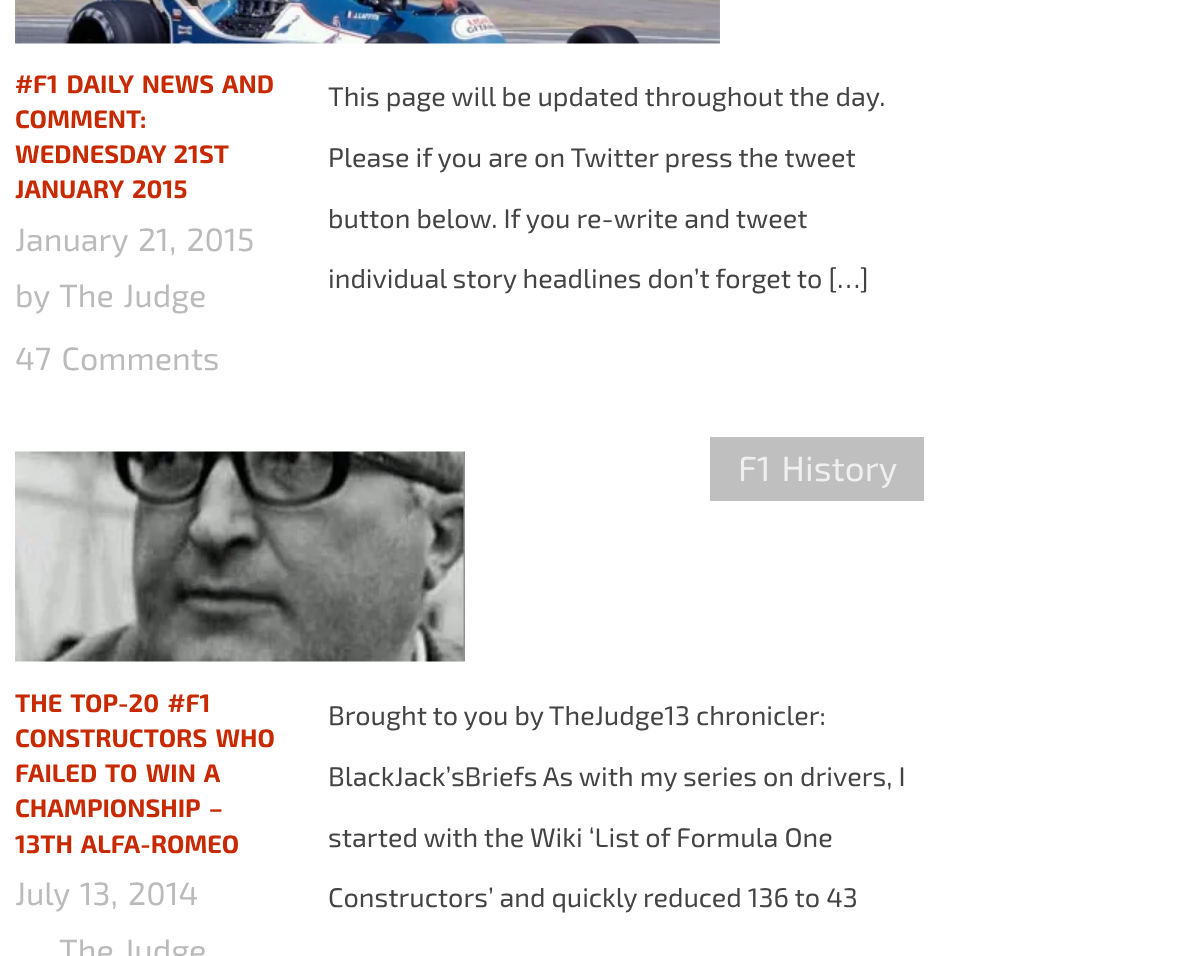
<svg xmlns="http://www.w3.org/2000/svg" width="1184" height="956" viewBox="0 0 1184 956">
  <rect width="100%" height="100%" fill="rgb(255,255,255)"/>
  <image x="15" y="0" width="705" height="44" href="pic1.png"/>
  <g font-family="'Exo 2'" font-size="25.25" font-weight="bold" fill="rgb(199,41,0)">
    <text>
      <tspan x="15" y="93" word-spacing="3">#F1 DAILY NEWS AND</tspan>
      <tspan x="15" y="128">COMMENT:</tspan>
      <tspan x="15" y="163" word-spacing="2">WEDNESDAY 21ST</tspan>
      <tspan x="15" y="198" word-spacing="3">JANUARY 2015</tspan>
    </text>
  </g>
  <g font-family="'Exo 2'" font-size="32.25" fill="rgb(187,187,187)">
    <text>
      <tspan x="15" y="251" word-spacing="3">January 21, 2015</tspan>
      <tspan x="15" y="307">by</tspan>
    </text>
    <text x="59" y="307" word-spacing="3">The Judge</text>
    <text x="15" y="370" word-spacing="3">47 Comments</text>
  </g>
  <g font-family="'Exo 2'" font-size="27" fill="rgb(68,68,68)">
    <text x="328" y="106">This page will be updated throughout the day.</text>
    <text x="328" y="167">Please if you are on Twitter press the tweet</text>
    <text x="328" y="228">button below. If you re-write and tweet</text>
    <text x="328" y="288">individual story headlines don’t forget to […]</text>
  </g>
  <image x="15" y="451" width="450" height="211" href="pic2.png"/>
  <rect x="710" y="437" width="214" height="64" fill="rgb(191,191,191)"/>
  <text x="738" y="481" word-spacing="3" font-family="'Exo 2'" font-size="35" fill="rgb(239,239,239)">F1 History</text>
  <g font-family="'Exo 2'" font-size="25.25" font-weight="bold" fill="rgb(199,41,0)">
    <text>
      <tspan x="15" y="712" word-spacing="3">THE TOP-20 #F1</tspan>
      <tspan x="15" y="747" word-spacing="3">CONSTRUCTORS WHO</tspan>
      <tspan x="15" y="782" word-spacing="3">FAILED TO WIN A</tspan>
      <tspan x="15" y="817" word-spacing="3">CHAMPIONSHIP –</tspan>
      <tspan x="15" y="853" word-spacing="3">13TH ALFA-ROMEO</tspan>
    </text>
  </g>
  <g font-family="'Exo 2'" font-size="32.25" fill="rgb(187,187,187)">
    <text x="15" y="905" word-spacing="3">July 13, 2014</text>
    <text x="59" y="962" word-spacing="3">The Judge</text>
  </g>
  <g font-family="'Exo 2'" font-size="27" fill="rgb(68,68,68)">
    <text x="328" y="725">Brought to you by TheJudge13 chronicler:</text>
    <text x="328" y="786">BlackJack’sBriefs As with my series on drivers, I</text>
    <text x="328" y="847">started with the Wiki ‘List of Formula One</text>
    <text x="328" y="907">Constructors’ and quickly reduced 136 to 43</text>
  </g>
</svg>
